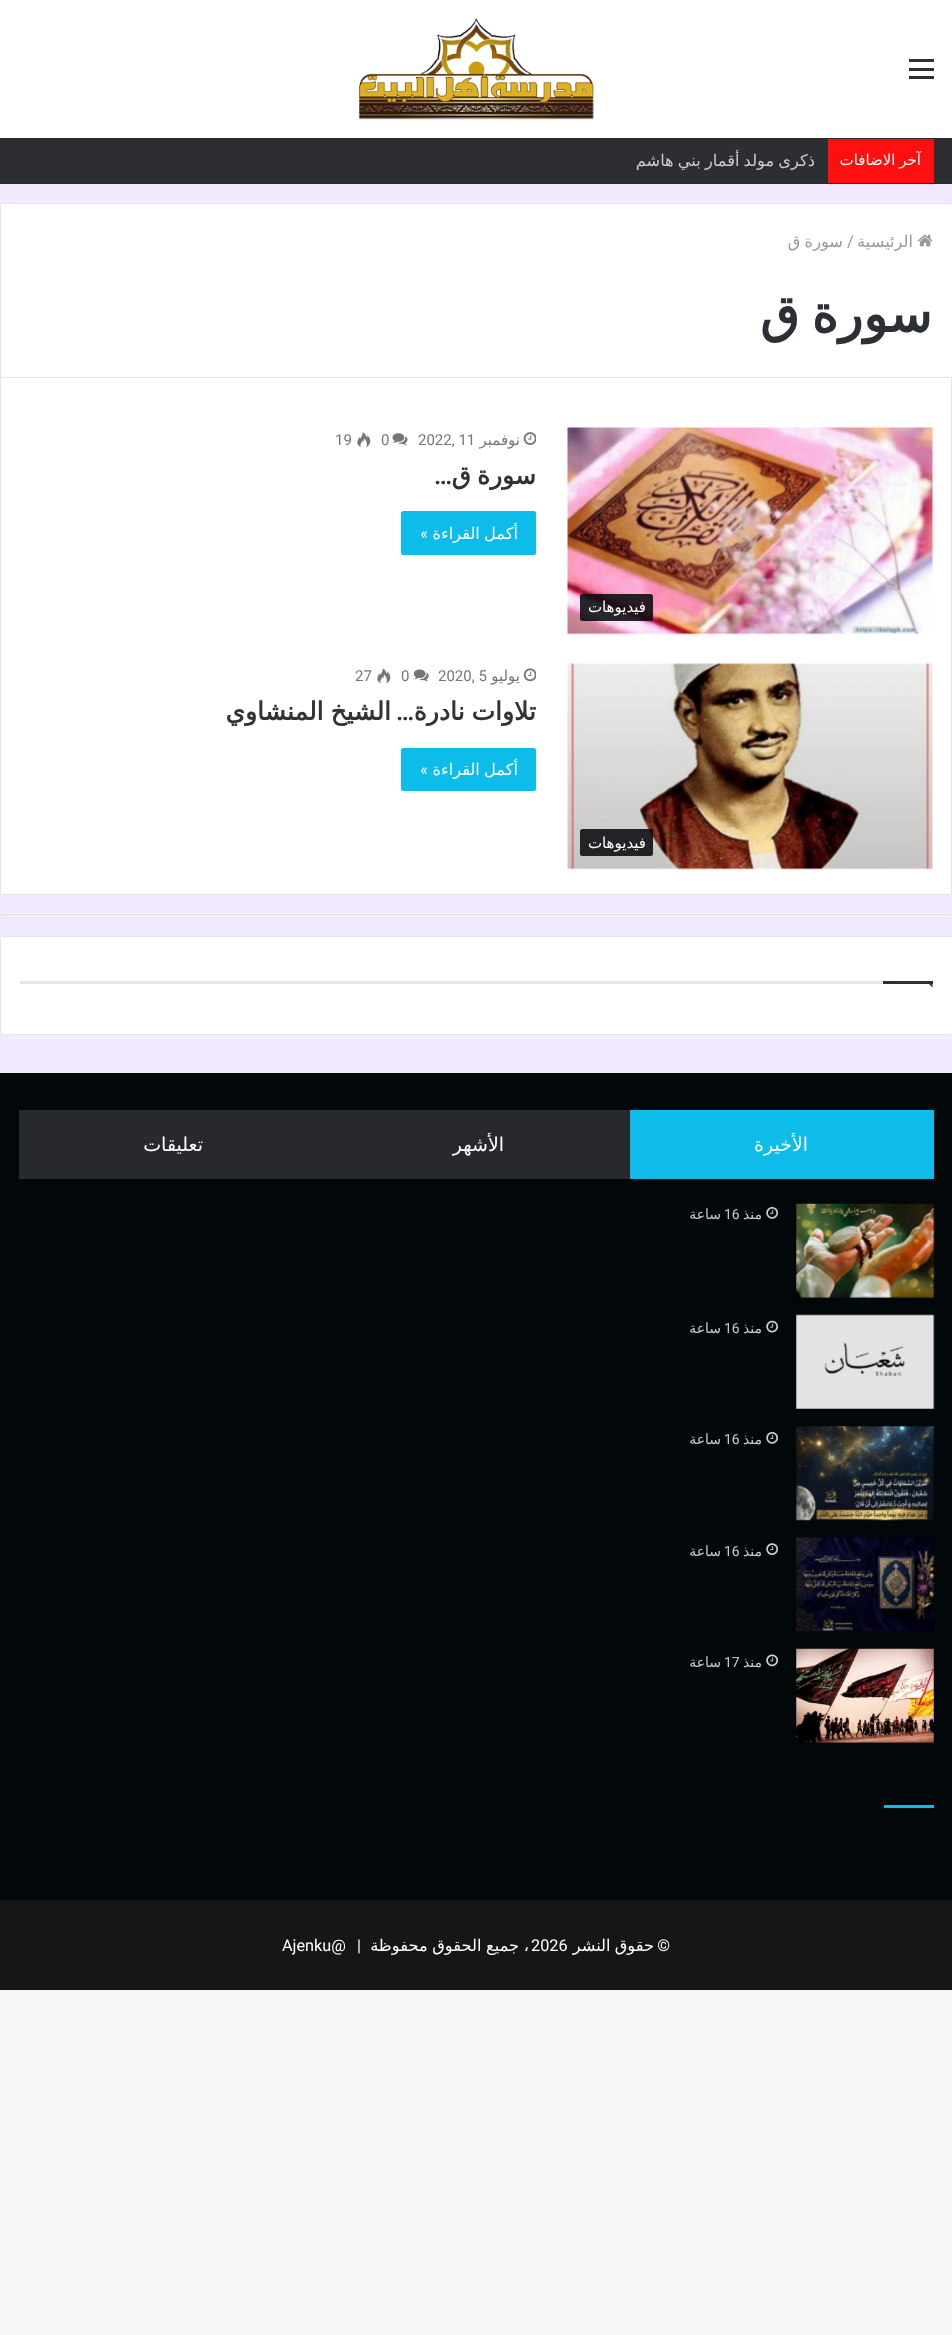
<svg xmlns="http://www.w3.org/2000/svg" width="952" height="2335" viewBox="0 0 952 2335">
  <defs>
    <clipPath id="clip1"><rect x="636" y="139" width="179" height="44"/></clipPath>
  </defs>
  <rect width="100%" height="100%" fill="rgb(247,247,247)"/>
  <rect x="0" y="184" width="952" height="889" fill="rgb(242,234,255)"/>
  <rect x="0" y="0" width="952" height="138" fill="rgb(255,255,255)"/>
  <rect x="909" y="68" width="25" height="3" fill="rgb(44,47,52)"/>
  <rect x="909" y="59" width="25" height="3" fill="rgb(44,47,52)"/>
  <rect x="909" y="76" width="25" height="3" fill="rgb(44,47,52)"/>
  <image x="359" y="18" width="235" height="102" href="pic1.png"/>
  <rect x="0" y="139" width="952" height="44" fill="rgb(44,46,50)"/>
  <rect x="0" y="138" width="952" height="1" fill="rgb(40,41,45)"/>
  <rect x="0" y="183" width="952" height="1" fill="rgb(40,41,45)"/>
  <rect x="828" y="139" width="106" height="44" fill="rgb(255,15,15)"/>
  <text x="921" y="165" word-spacing="-1" font-family="DejaVu Sans" font-size="15" direction="rtl" fill="rgb(255,255,255)">آخر الاضافات</text>
  <g clip-path="url(#clip1)">
    <text x="815" y="166" word-spacing="-1" font-family="DejaVu Sans" font-size="16.25" direction="rtl" fill="rgb(204,204,204)">ذكرى مولد أقمار بني هاشم</text>
  </g>
  <path d="M2.5 203H950.5C952 203 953 204 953 205.5V378H0V205.5C0 204 1 203 2.5 203Z" fill="rgb(255,255,255)"/>
  <path d="M2.5 203.5H950.5C951.5 203.5 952.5 204.5 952.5 205.5V377.5H.5V205.5C.5 204.5 1.5 203.5 2.5 203.5Z" fill="none" stroke="rgba(0,0,0,0.1)"/>
  <image x="917" y="234" width="16" height="13" href="pic2.png"/>
  <text x="913" y="247" font-family="DejaVu Sans" font-size="16.25" direction="rtl" fill="rgb(153,153,153)">الرئيسية</text>
  <text x="847" y="247" font-family="Roboto" font-size="16.25" fill="rgb(153,153,153)">/</text>
  <text x="843" y="247" word-spacing="-1" font-family="DejaVu Sans" font-size="16.25" direction="rtl" fill="rgb(153,153,153)">سورة ق</text>
  <text x="932" y="332" word-spacing="-4" font-family="DejaVu Sans" font-size="51" font-weight="bold" direction="rtl" fill="rgb(44,47,52)">سورة ق</text>
  <path d="M0 378H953V892.5C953 894 952 895 950.5 895H2.5C1 895 0 894 0 892.5Z" fill="rgb(255,255,255)"/>
  <rect x="951" y="378" width="1" height="516" fill="rgb(230,230,230)"/>
  <rect x="1" y="894" width="950" height="1" fill="rgba(0,0,0,0.1)"/>
  <rect x="0" y="378" width="1" height="516" fill="rgba(0,0,0,0.1)"/>
  <image x="523" y="432" width="13" height="13" href="pic3.png"/>
  <text x="520" y="445" font-family="DejaVu Sans" font-size="15" direction="rtl" fill="rgb(118,118,118)">نوفمبر</text>
  <text x="418" y="445" font-family="Roboto" font-size="15" fill="rgb(118,118,118)">2022, 11</text>
  <image x="392" y="433" width="16" height="12" href="pic4.png"/>
  <text x="381" y="445" font-family="Roboto" font-size="15" fill="rgb(118,118,118)">0</text>
  <image x="357" y="432" width="14" height="15" href="pic5.png"/>
  <text x="335" y="445" font-family="Roboto" font-size="15" fill="rgb(118,118,118)">19</text>
  <text x="536" y="484" word-spacing="-2" font-family="DejaVu Sans" font-size="25" font-weight="bold" direction="rtl" fill="rgb(51,51,51)">سورة ق</text>
  <text x="452" y="484" font-family="Roboto" font-size="25" font-weight="600" direction="rtl" fill="rgb(51,51,51)">…</text>
  <rect x="401" y="511" width="135" height="44" rx="2.5" fill="rgb(13,188,232)"/>
  <text x="518" y="539" word-spacing="-1" font-family="DejaVu Sans" font-size="16.25" direction="rtl" fill="rgb(255,255,255)">أكمل القراءة</text>
  <text x="428" y="539" font-family="Roboto" font-size="16.25" direction="rtl" fill="rgb(255,255,255)">»</text>
  <image x="567" y="427" width="366" height="208" href="pic6.png"/>
  <rect x="580" y="594" width="73" height="27" rx="2.5" fill="rgba(9,11,15,0.88)"/>
  <text x="646" y="612" font-family="DejaVu Sans" font-size="15" direction="rtl" fill="rgb(255,255,255)">فيديوهات</text>
  <image x="523" y="668" width="13" height="14" href="pic7.png"/>
  <text x="520" y="681" font-family="DejaVu Sans" font-size="15" direction="rtl" fill="rgb(118,118,118)">يوليو</text>
  <text x="438" y="681" font-family="Roboto" font-size="15" fill="rgb(118,118,118)">2020, 5</text>
  <image x="413" y="669" width="16" height="13" href="pic8.png"/>
  <text x="401" y="681" font-family="Roboto" font-size="15" fill="rgb(118,118,118)">0</text>
  <image x="377" y="668" width="14" height="16" href="pic9.png"/>
  <text x="355" y="681" font-family="Roboto" font-size="15" fill="rgb(118,118,118)">27</text>
  <text x="536" y="720" word-spacing="-1" font-family="DejaVu Sans" font-size="25" font-weight="bold" direction="rtl" fill="rgb(51,51,51)">تلاوات نادرة</text>
  <text x="414" y="720" font-family="Roboto" font-size="25" font-weight="600" direction="rtl" fill="rgb(51,51,51)">…</text>
  <text x="391" y="720" word-spacing="-1" font-family="DejaVu Sans" font-size="25" font-weight="bold" direction="rtl" fill="rgb(51,51,51)">الشيخ المنشاوي</text>
  <rect x="401" y="748" width="135" height="43" rx="2.5" fill="rgb(13,188,232)"/>
  <text x="518" y="775" word-spacing="-1" font-family="DejaVu Sans" font-size="16.25" direction="rtl" fill="rgb(255,255,255)">أكمل القراءة</text>
  <text x="428" y="775" font-family="Roboto" font-size="16.25" direction="rtl" fill="rgb(255,255,255)">»</text>
  <image x="567" y="663" width="366" height="207" href="pic10.png"/>
  <rect x="580" y="829" width="73" height="27" rx="2.5" fill="rgba(9,11,15,0.88)"/>
  <text x="646" y="848" font-family="DejaVu Sans" font-size="15" direction="rtl" fill="rgb(255,255,255)">فيديوهات</text>
  <rect x="0.5" y="914.5" width="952" height="3" rx="1.5" fill="rgb(255,255,255)" stroke="rgb(229,229,230)"/>
  <rect x="1" y="915" width="950" height="1" fill="rgba(0,0,0,0.1)"/>
  <rect x="0" y="936" width="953" height="99" rx="2.5" fill="rgb(255,255,255)"/>
  <rect x="0.5" y="936.5" width="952" height="98" rx="2" fill="none" stroke="rgba(0,0,0,0.1)"/>
  <rect x="20" y="981" width="863" height="3" fill="rgb(230,230,230)"/>
  <path d="M926 981H932.5V987.5Z" fill="rgb(44,47,52)"/>
  <rect x="883" y="981" width="50" height="3" fill="rgb(44,47,52)"/>
  <rect x="0" y="1073" width="952" height="827" fill="rgb(2,7,10)"/>
  <rect x="630" y="1110" width="304" height="69" fill="rgb(13,188,232)"/>
  <text x="808" y="1151" font-family="DejaVu Sans" font-size="19" direction="rtl" fill="rgb(255,255,255)">الأخيرة</text>
  <rect x="19" y="1110" width="611" height="69" fill="rgb(39,41,45)"/>
  <g font-family="DejaVu Sans" font-size="19" direction="rtl" fill="rgb(255,255,255)">
    <text x="504" y="1151">الأشهر</text>
    <text x="203" y="1151">تعليقات</text>
  </g>
  <image x="796" y="1203" width="139" height="95" href="pic11.png"/>
  <image x="766" y="1207" width="12" height="12" href="pic12.png"/>
  <text x="762" y="1219" font-family="DejaVu Sans" font-size="14" direction="rtl" fill="rgb(204,204,204)">منذ</text>
  <text x="724" y="1219" font-family="Roboto" font-size="14" fill="rgb(204,204,204)">16</text>
  <text x="721" y="1219" font-family="DejaVu Sans" font-size="14" direction="rtl" fill="rgb(204,204,204)">ساعة</text>
  <image x="796" y="1314" width="139" height="95" href="pic13.png"/>
  <image x="766" y="1320" width="12" height="13" href="pic14.png"/>
  <text x="762" y="1333" font-family="DejaVu Sans" font-size="14" direction="rtl" fill="rgb(204,204,204)">منذ</text>
  <text x="724" y="1333" font-family="Roboto" font-size="14" fill="rgb(204,204,204)">16</text>
  <text x="721" y="1333" font-family="DejaVu Sans" font-size="14" direction="rtl" fill="rgb(204,204,204)">ساعة</text>
  <image x="796" y="1426" width="139" height="95" href="pic15.png"/>
  <image x="766" y="1432" width="12" height="12" href="pic12.png"/>
  <text x="762" y="1444" font-family="DejaVu Sans" font-size="14" direction="rtl" fill="rgb(204,204,204)">منذ</text>
  <text x="724" y="1444" font-family="Roboto" font-size="14" fill="rgb(204,204,204)">16</text>
  <text x="721" y="1444" font-family="DejaVu Sans" font-size="14" direction="rtl" fill="rgb(204,204,204)">ساعة</text>
  <image x="796" y="1537" width="139" height="95" href="pic16.png"/>
  <image x="766" y="1543" width="12" height="12" href="pic17.png"/>
  <text x="762" y="1556" font-family="DejaVu Sans" font-size="14" direction="rtl" fill="rgb(204,204,204)">منذ</text>
  <text x="724" y="1556" font-family="Roboto" font-size="14" fill="rgb(204,204,204)">16</text>
  <text x="721" y="1556" font-family="DejaVu Sans" font-size="14" direction="rtl" fill="rgb(204,204,204)">ساعة</text>
  <image x="796" y="1648" width="138" height="95" href="pic18.png"/>
  <image x="766" y="1654" width="12" height="13" href="pic19.png"/>
  <text x="762" y="1667" font-family="DejaVu Sans" font-size="14" direction="rtl" fill="rgb(204,204,204)">منذ</text>
  <text x="724" y="1667" font-family="Roboto" font-size="14" fill="rgb(204,204,204)">17</text>
  <text x="721" y="1667" font-family="DejaVu Sans" font-size="14" direction="rtl" fill="rgb(204,204,204)">ساعة</text>
  <rect x="884" y="1805" width="50" height="3" fill="rgb(13,188,232)"/>
  <rect x="0" y="1900" width="952" height="90" fill="rgb(22,22,25)"/>
  <text x="670" y="1951" font-family="Roboto" font-size="16.25" direction="rtl" fill="rgb(255,255,255)">©</text>
  <text x="654" y="1951" word-spacing="-1" font-family="DejaVu Sans" font-size="16.25" direction="rtl" fill="rgb(255,255,255)">حقوق النشر</text>
  <text x="531" y="1951" font-family="Roboto" font-size="16.25" fill="rgb(255,255,255)">2026</text>
  <text x="529" y="1951" word-spacing="-0.5" font-family="DejaVu Sans" font-size="16.25" direction="rtl" fill="rgb(255,255,255)">، جميع الحقوق محفوظة</text>
  <text x="361" y="1951" font-family="Roboto" font-size="16.25" direction="rtl" fill="rgb(255,255,255)">|</text>
  <text x="282" y="1951" font-family="Roboto" font-size="16.25" fill="rgb(255,255,255)">Ajenku@</text>
</svg>
